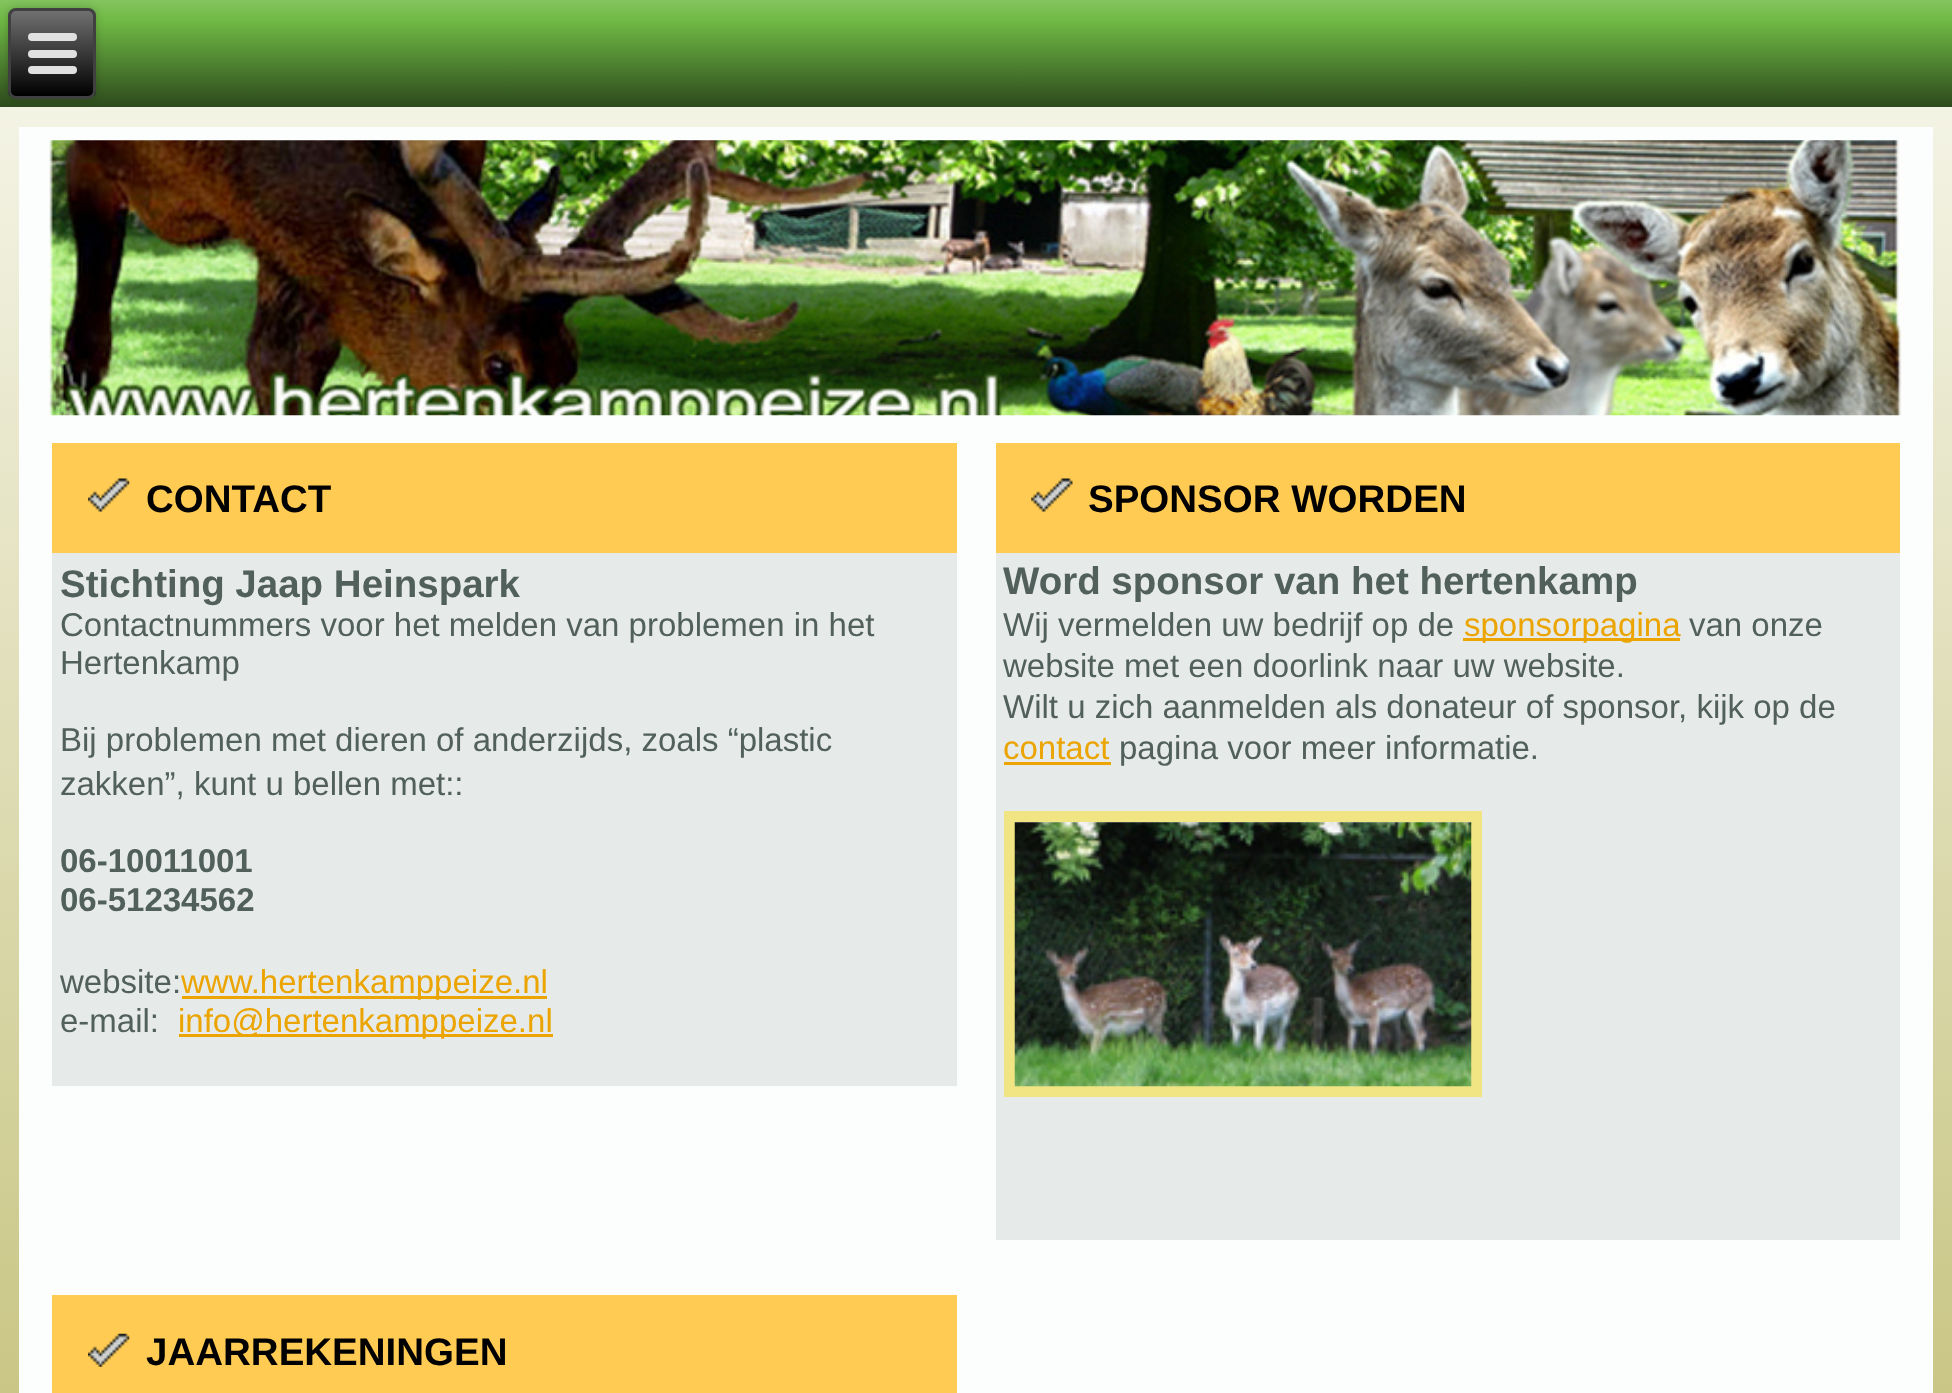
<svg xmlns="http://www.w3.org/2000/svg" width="1952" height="1393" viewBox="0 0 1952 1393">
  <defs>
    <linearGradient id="g1" gradientUnits="userSpaceOnUse" x1="976" y1="0" x2="976" y2="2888"><stop offset="0" stop-color="rgb(247,247,237)"/><stop offset="0.74" stop-color="rgb(177,172,78)"/><stop offset="1" stop-color="rgb(121,117,53)"/></linearGradient>
    <linearGradient id="g2" gradientUnits="userSpaceOnUse" x1="976" y1="0" x2="976" y2="107"><stop offset="0" stop-color="rgb(132,196,95)"/><stop offset="0.19" stop-color="rgb(112,186,69)"/><stop offset="1" stop-color="rgb(45,74,28)"/></linearGradient>
    <clipPath id="clip1"><rect x="8" y="8" width="88" height="91" rx="8"/></clipPath>
    <linearGradient id="g3" gradientUnits="userSpaceOnUse" x1="52" y1="11" x2="52" y2="96"><stop offset="0" stop-color="rgb(112,112,112)"/><stop offset="1" stop-color="rgb(0,0,0)"/></linearGradient>
  </defs>
  <rect width="100%" height="100%" fill="rgb(255,255,255)"/>
  <rect x="0" y="107" width="1952" height="1286" fill="url(#g1)"/>
  <rect x="0" y="0" width="1952" height="107" fill="url(#g2)"/>
  <rect x="8" y="8" width="88" height="91" rx="8" fill="rgba(0,0,0,0.2)" filter="blur(4px)"/>
  <g clip-path="url(#clip1)">
    <rect x="8" y="11" width="88" height="85" fill="url(#g3)"/>
  </g>
  <rect x="9.5" y="9.5" width="85" height="88" rx="6.5" fill="none" stroke="rgb(64,64,64)" stroke-width="3"/>
  <rect x="28" y="33" width="49" height="8" rx="4" fill="rgb(224,224,224)"/>
  <rect x="28" y="50" width="49" height="8" rx="4" fill="rgb(224,224,224)"/>
  <rect x="28" y="66" width="49" height="8" rx="4" fill="rgb(224,224,224)"/>
  <rect x="19" y="127" width="1914" height="1266" fill="rgb(252,253,253)"/>
  <image x="48" y="140" width="1856" height="276" href="pic1.png"/>
  <rect x="52" y="443" width="905" height="110" fill="rgb(255,203,82)"/>
  <image x="88" y="478" width="42" height="34" href="pic2.png"/>
  <text x="146" y="512" font-family="Liberation Sans" font-size="38.5" font-weight="bold" fill="rgb(0,0,0)">CONTACT</text>
  <rect x="52" y="553" width="905" height="533" fill="rgb(230,234,233)"/>
  <text x="60" y="597" font-family="Liberation Sans" font-size="38.5" font-weight="bold" fill="rgb(82,96,92)">Stichting Jaap Heinspark</text>
  <g font-family="Liberation Sans" font-size="33" fill="rgb(82,96,92)">
    <text>
      <tspan x="60" y="636">Contactnummers voor het melden van problemen in het</tspan>
      <tspan x="60" y="674">Hertenkamp</tspan>
    </text>
    <text>
      <tspan x="60" y="751">Bij problemen met dieren of anderzijds, zoals “plastic</tspan>
      <tspan x="60" y="795">zakken”, kunt u bellen met::</tspan>
    </text>
  </g>
  <g font-family="Liberation Sans" font-size="33" font-weight="bold" fill="rgb(82,96,92)">
    <text>
      <tspan x="60" y="872">06-10011001</tspan>
      <tspan x="60" y="911">06-51234562</tspan>
    </text>
  </g>
  <text x="60" y="993" font-family="Liberation Sans" font-size="33" fill="rgb(82,96,92)">website:</text>
  <rect x="182" y="996" width="365" height="3" fill="rgb(235,164,0)"/>
  <text x="181" y="993" font-family="Liberation Sans" font-size="33" fill="rgb(235,164,0)">www.hertenkamppeize.nl</text>
  <text x="60" y="1032" font-family="Liberation Sans" font-size="33" fill="rgb(82,96,92)">e-mail:</text>
  <rect x="179" y="1034" width="374" height="3" fill="rgb(235,164,0)"/>
  <text x="178" y="1032" font-family="Liberation Sans" font-size="33" fill="rgb(235,164,0)">info@hertenkamppeize.nl</text>
  <rect x="996" y="443" width="904" height="110" fill="rgb(255,203,82)"/>
  <image x="1031" y="478" width="42" height="34" href="pic3.png"/>
  <text x="1088" y="512" font-family="Liberation Sans" font-size="38.5" font-weight="bold" fill="rgb(0,0,0)">SPONSOR WORDEN</text>
  <rect x="996" y="553" width="904" height="687" fill="rgb(230,234,233)"/>
  <text x="1003" y="594" font-family="Liberation Sans" font-size="38.5" font-weight="bold" fill="rgb(82,96,92)">Word sponsor van het hertenkamp</text>
  <text x="1003" y="636" font-family="Liberation Sans" font-size="33" fill="rgb(82,96,92)">Wij vermelden uw bedrijf op de</text>
  <rect x="1463" y="638" width="217" height="3" fill="rgb(235,164,0)"/>
  <text x="1464" y="636" font-family="Liberation Sans" font-size="33" fill="rgb(235,164,0)">sponsorpagina</text>
  <g font-family="Liberation Sans" font-size="33" fill="rgb(82,96,92)">
    <text x="1689" y="636">van onze</text>
    <text>
      <tspan x="1003" y="677">website met een doorlink naar uw website.</tspan>
      <tspan x="1003" y="718">Wilt u zich aanmelden als donateur of sponsor, kijk op de</tspan>
    </text>
  </g>
  <text x="1003" y="759" font-family="Liberation Sans" font-size="33" fill="rgb(235,164,0)">contact</text>
  <rect x="1004" y="762" width="107" height="3" fill="rgb(235,164,0)"/>
  <text x="1119" y="759" font-family="Liberation Sans" font-size="33" fill="rgb(82,96,92)">pagina voor meer informatie.</text>
  <rect x="1009.5" y="816.5" width="467" height="275" fill="none" stroke="rgb(241,228,131)" stroke-width="11"/>
  <image x="1014" y="822" width="458" height="265" href="pic4.png"/>
  <rect x="52" y="1295" width="905" height="98" fill="rgb(255,203,82)"/>
  <image x="88" y="1333" width="42" height="34" href="pic5.png"/>
  <text x="146" y="1365" font-family="Liberation Sans" font-size="38.5" font-weight="bold" fill="rgb(0,0,0)">JAARREKENINGEN</text>
</svg>
